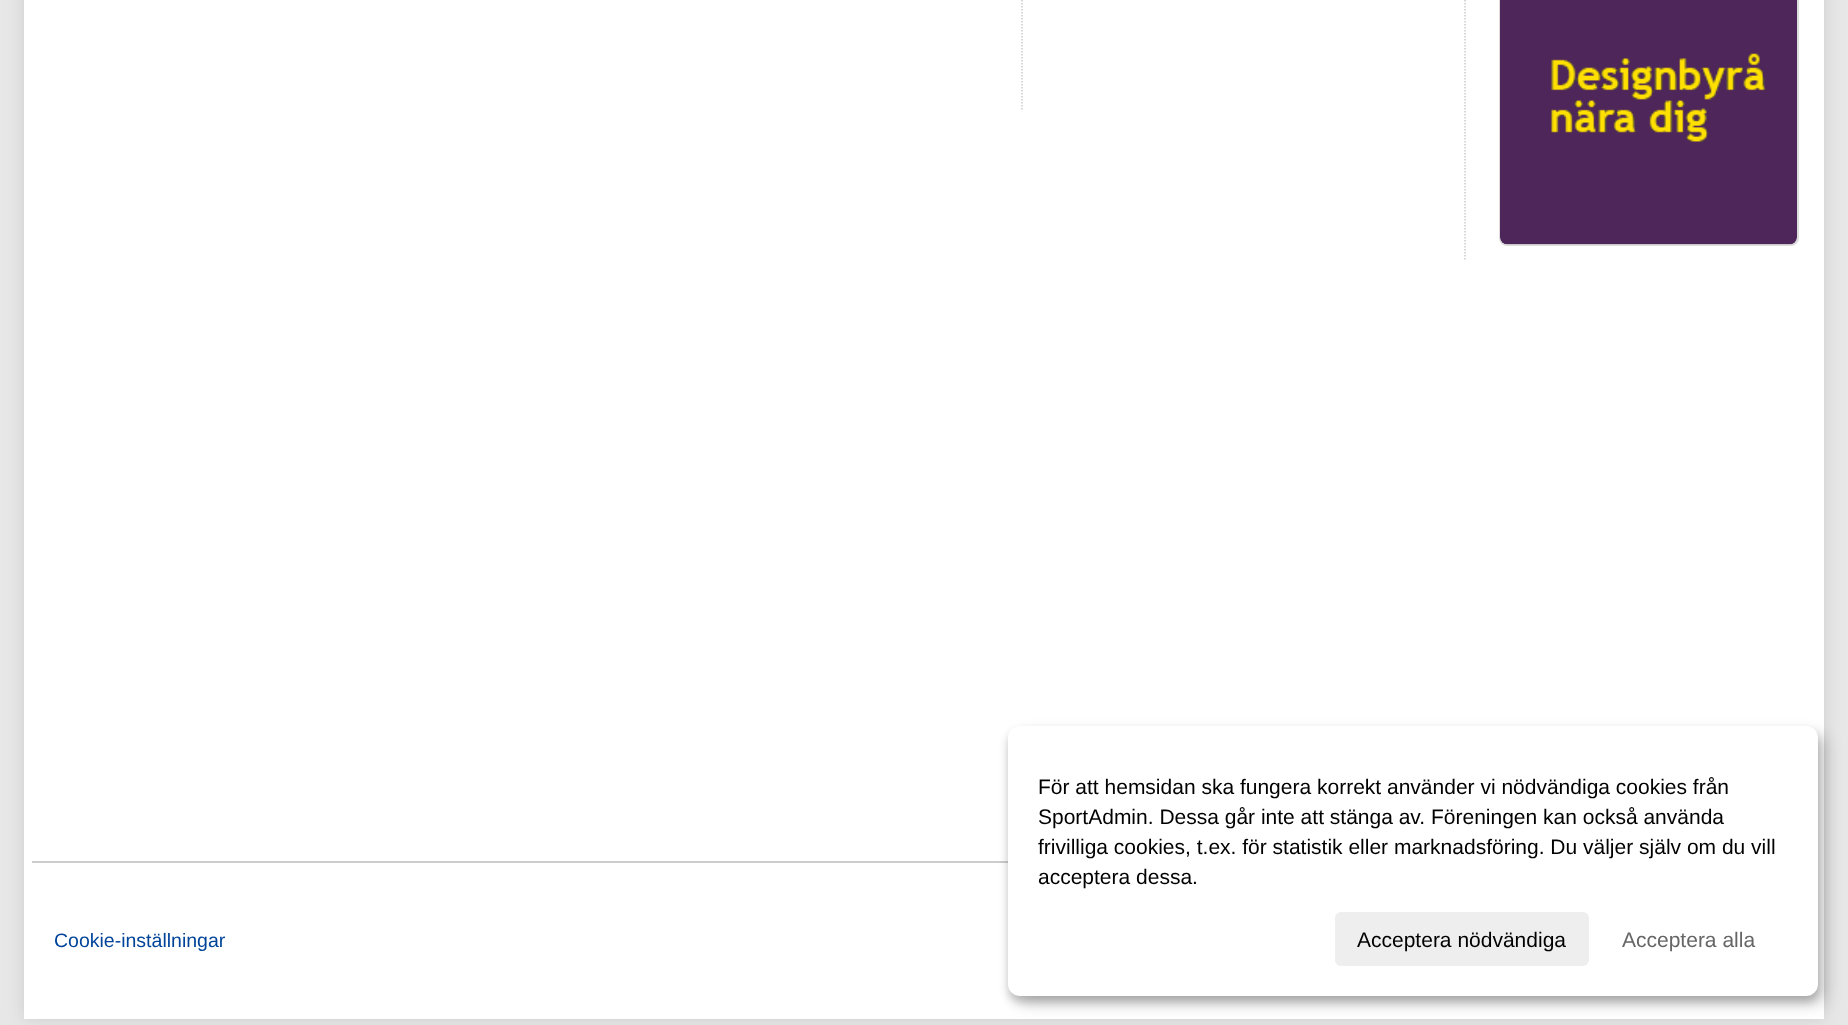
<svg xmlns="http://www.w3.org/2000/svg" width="1848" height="1025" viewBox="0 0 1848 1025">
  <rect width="100%" height="100%" fill="rgb(231,231,232)"/>
  <rect x="24" y="-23" width="1800" height="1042" fill="rgb(204,204,204)" filter="blur(7.5px)"/>
  <rect x="24" y="0" width="1800" height="1019" fill="rgb(255,255,255)"/>
  <path d="M1022-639V111" fill="none" stroke="rgb(204,204,204)" stroke-width="1.5" stroke-dasharray="1.5 1.5"/>
  <path d="M1465-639V261" fill="none" stroke="rgb(204,204,204)" stroke-width="1.5" stroke-dasharray="1.5 1.5"/>
  <rect x="1500" y="-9" width="298" height="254" rx="7" fill="none" stroke="rgb(221,221,221)" stroke-width="2"/>
  <image x="1500" y="0" width="297" height="245" href="pic1.png"/>
  <rect x="32" y="861" width="976" height="2" fill="rgb(204,204,204)"/>
  <text x="54" y="947" font-family="Liberation Sans" font-size="19.5" fill="rgb(0,68,153)">Cookie-inställningar</text>
  <rect x="1016" y="734" width="810" height="270" rx="12" fill="rgba(0,0,0,0.19)" filter="blur(7.5px)"/>
  <rect x="1008" y="732" width="810" height="270" rx="12" fill="rgba(0,0,0,0.2)" filter="blur(4.5px)"/>
  <rect x="1008" y="726" width="810" height="270" rx="12" fill="rgb(255,255,255)"/>
  <g font-family="Liberation Sans" font-size="21" fill="rgb(0,0,0)">
    <text>
      <tspan x="1038" y="794">För att hemsidan ska fungera korrekt använder vi nödvändiga cookies från</tspan>
      <tspan x="1038" y="824">SportAdmin. Dessa går inte att stänga av. Föreningen kan också använda</tspan>
      <tspan x="1038" y="854">frivilliga cookies, t.ex. för statistik eller marknadsföring. Du väljer själv om du vill</tspan>
      <tspan x="1038" y="884">acceptera dessa.</tspan>
    </text>
  </g>
  <rect x="1335" y="912" width="254" height="54" rx="6" fill="rgb(238,238,238)"/>
  <text x="1357" y="947" font-family="Liberation Sans" font-size="21" fill="rgb(0,0,0)">Acceptera nödvändiga</text>
  <text x="1622" y="947" font-family="Liberation Sans" font-size="21" fill="rgb(102,102,102)">Acceptera alla</text>
</svg>
